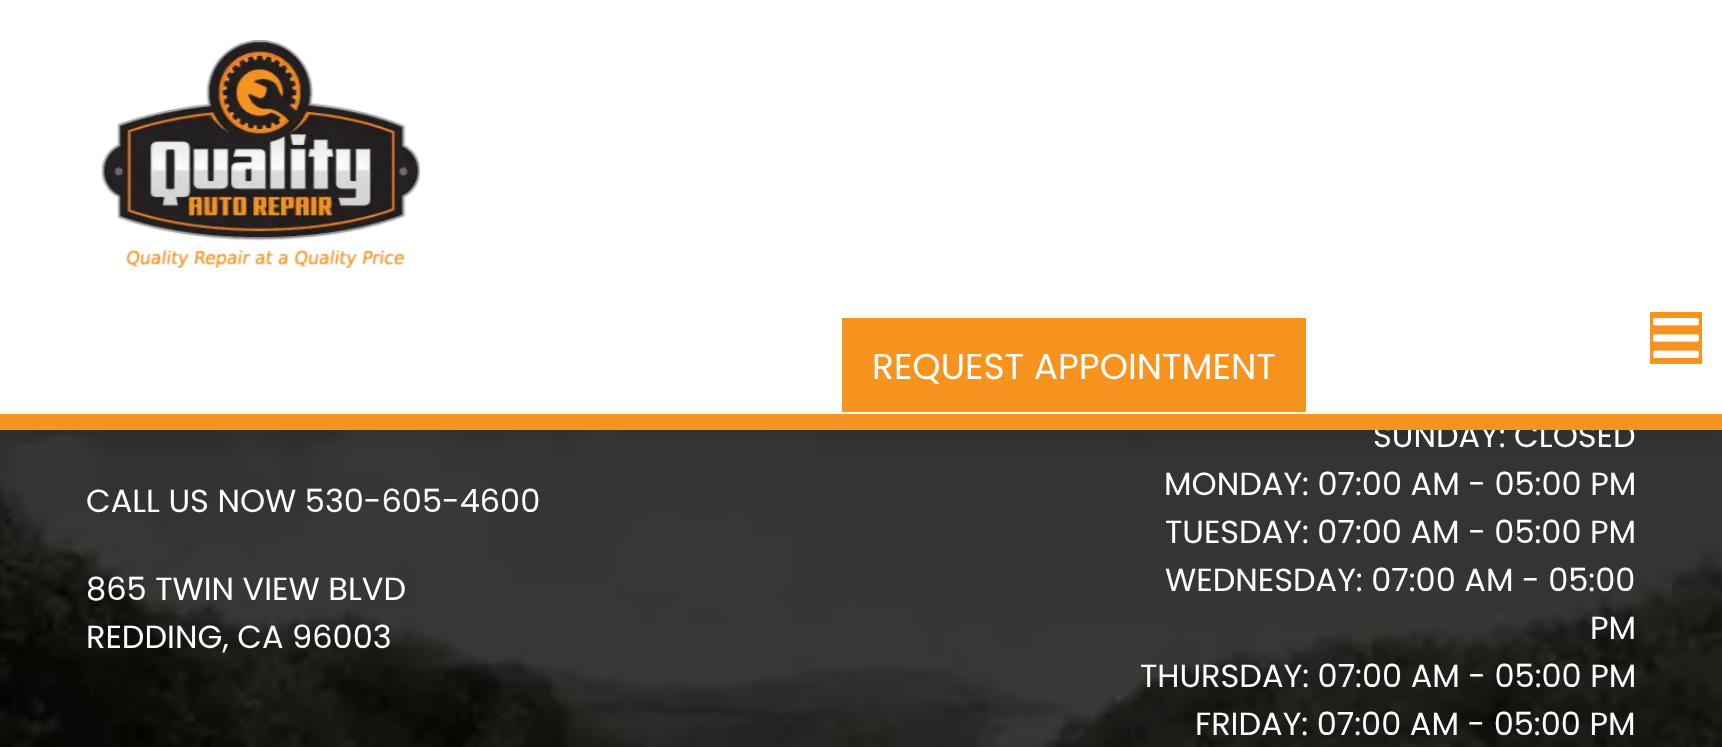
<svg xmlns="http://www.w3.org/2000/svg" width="1722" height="747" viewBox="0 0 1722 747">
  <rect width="100%" height="100%" fill="rgb(255,255,255)"/>
  <image x="0" y="430" width="1722" height="317" href="pic3.png"/>
  <rect x="0" y="6" width="1722" height="430" fill="rgba(0,0,0,0.1)" filter="blur(10px)"/>
  <rect x="0" y="0" width="1722" height="414" fill="rgb(255,255,255)"/>
  <text x="1373" y="447" font-family="Poppins" font-size="32" fill="rgb(255,255,255)">SUNDAY: CLOSED</text>
  <rect x="0" y="414" width="1722" height="16" fill="rgb(247,147,30)"/>
  <image x="101" y="40" width="319" height="228" href="pic1.png"/>
  <rect x="1650" y="312" width="52" height="52" fill="rgb(247,147,30)"/>
  <image x="1653" y="318" width="46" height="40" href="pic2.png"/>
  <rect x="842" y="318" width="464" height="94" fill="rgb(247,147,30)"/>
  <text x="872" y="379" font-family="Poppins" font-size="36" fill="rgb(255,255,255)">REQUEST APPOINTMENT</text>
  <g font-family="Poppins" font-size="32" fill="rgb(255,255,255)">
    <text x="86" y="512">CALL US NOW 530-605-4600</text>
    <text>
      <tspan x="86" y="600">865 TWIN VIEW BLVD</tspan>
      <tspan x="86" y="648">REDDING, CA 96003</tspan>
    </text>
    <text x="1164" y="495">MONDAY: 07:00 AM - 05:00 PM</text>
    <text>
      <tspan x="1165" y="543">TUESDAY: 07:00 AM - 05:00 PM</tspan>
      <tspan x="1165" y="591">WEDNESDAY: 07:00 AM - 05:00</tspan>
    </text>
    <text x="1590" y="639">PM</text>
    <text x="1140" y="687">THURSDAY: 07:00 AM - 05:00 PM</text>
    <text x="1195" y="735">FRIDAY: 07:00 AM - 05:00 PM</text>
  </g>
</svg>
